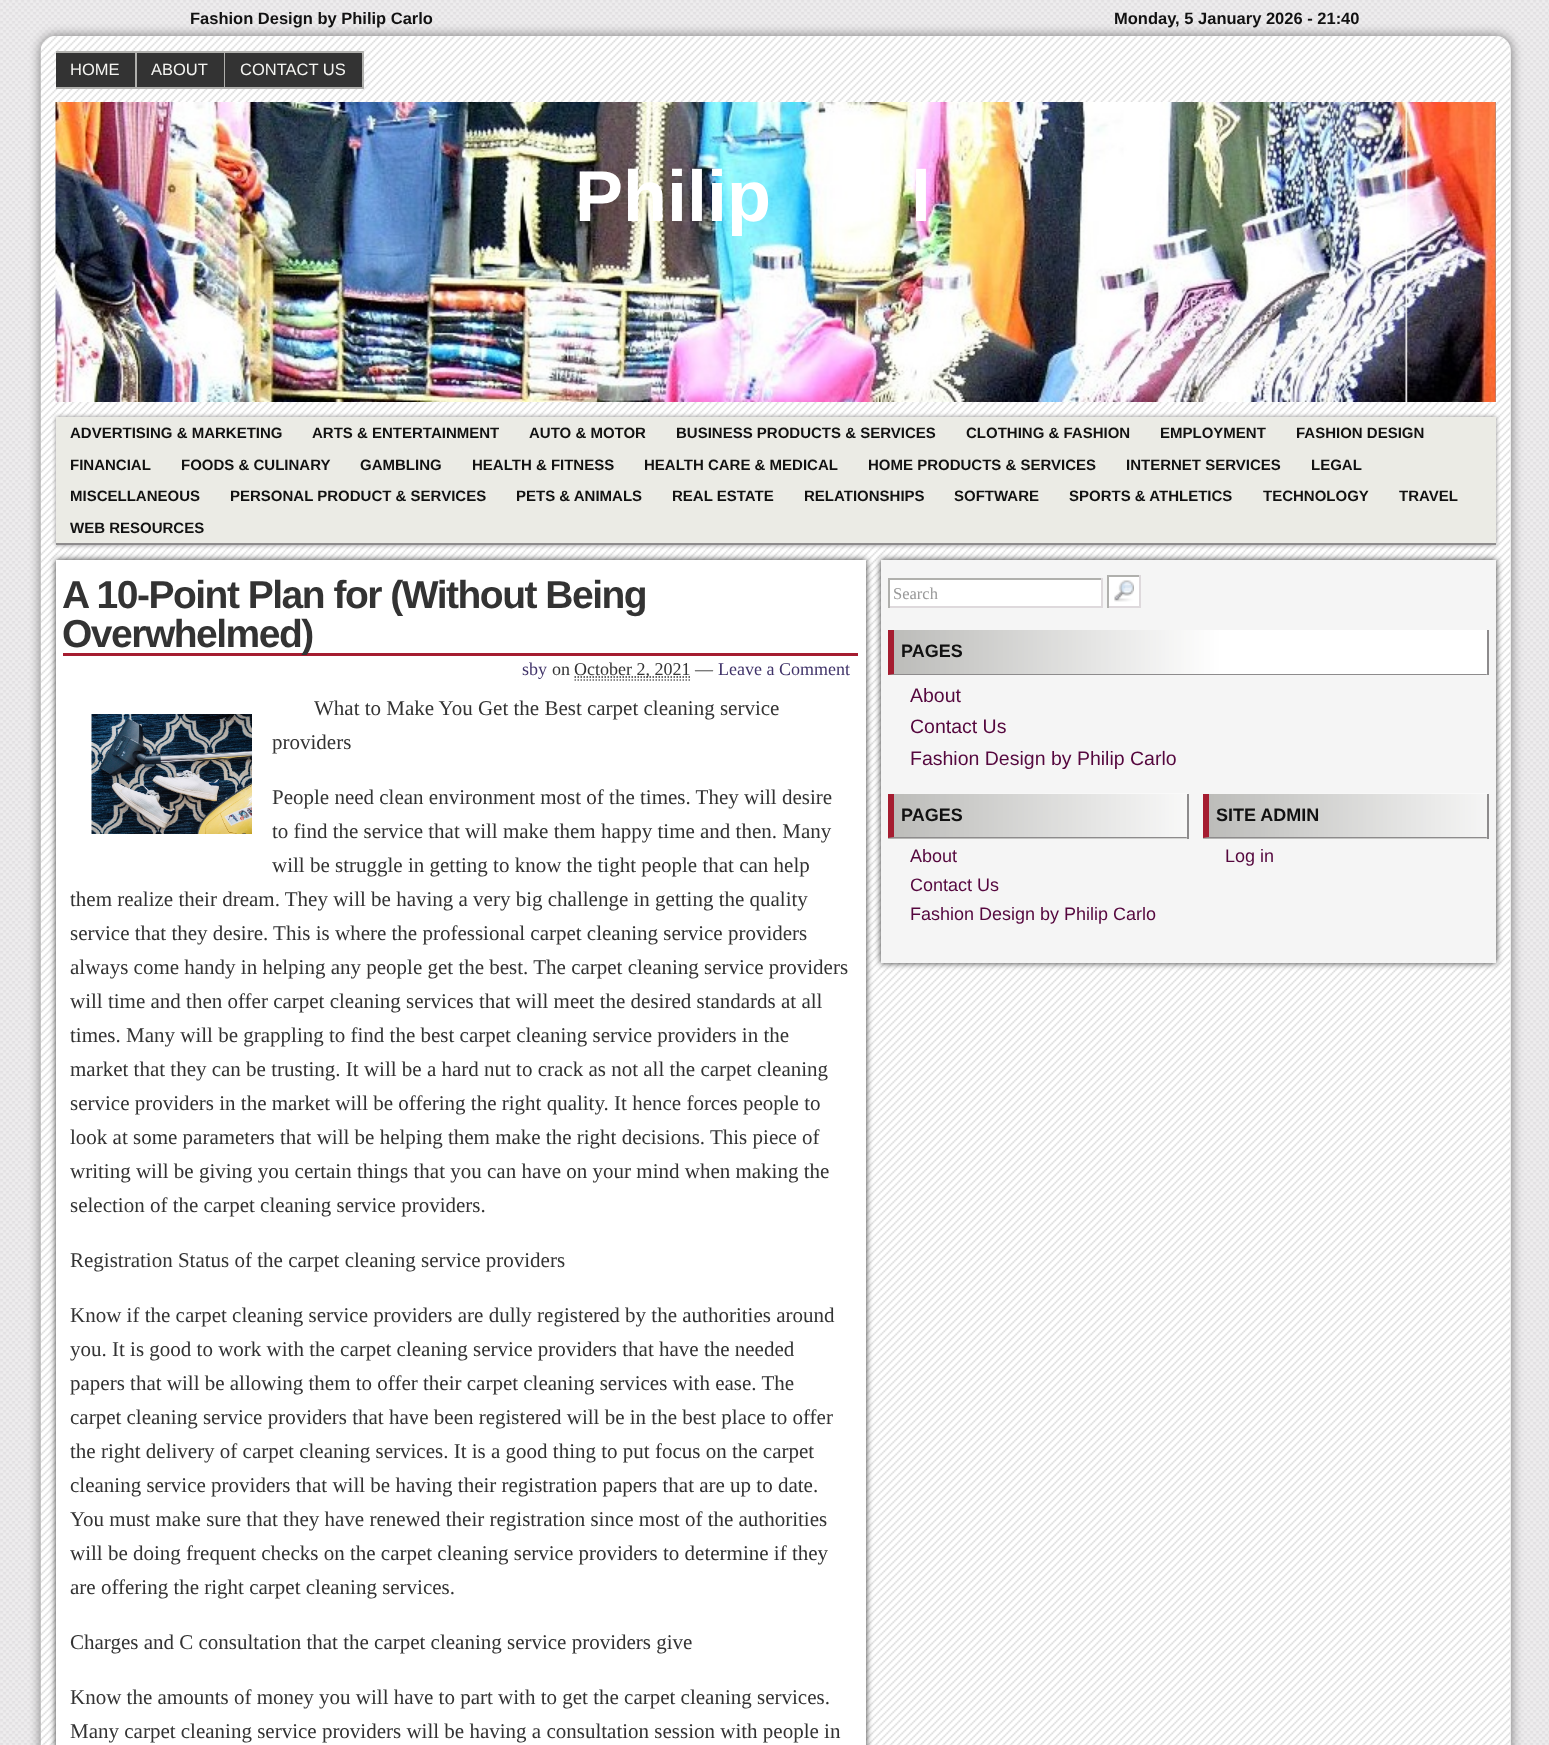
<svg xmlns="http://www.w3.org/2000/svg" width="1549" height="1745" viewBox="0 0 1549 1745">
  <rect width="100%" height="100%" fill="rgb(255,255,255)"/>
  <image x="0" y="0" width="1549" height="1745" href="pic1.png"/>
  <rect x="41" y="36" width="1470" height="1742" rx="15" fill="rgba(0,0,0,0.5)" filter="blur(6px)"/>
  <g font-family="Liberation Sans" font-size="16.5" font-weight="bold" fill="rgb(17,17,17)">
    <text x="190" y="24">Fashion Design by Philip Carlo</text>
    <text x="1114" y="24">Monday, 5 January 2026 - 21:40</text>
  </g>
  <rect x="41" y="36" width="1470" height="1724" rx="15" fill="rgb(235,235,235)"/>
  <image x="40" y="36" width="1471" height="1709" href="pic2.png"/>
  <rect x="56" y="87" width="307" height="2" fill="rgb(176,176,173)"/>
  <rect x="56" y="53" width="79" height="34" fill="rgb(51,51,51)"/>
  <rect x="56" y="51" width="169" height="2" fill="rgb(176,176,173)"/>
  <rect x="135" y="51" width="2" height="38" fill="rgb(176,176,173)"/>
  <text x="70" y="75" font-family="Liberation Sans" font-size="16.5" fill="rgb(245,245,242)">HOME</text>
  <rect x="137" y="53" width="87" height="34" fill="rgb(51,51,51)"/>
  <rect x="224" y="51" width="2" height="38" fill="rgb(176,176,173)"/>
  <text x="151" y="75" font-family="Liberation Sans" font-size="16.5" fill="rgb(245,245,242)">ABOUT</text>
  <rect x="225" y="53" width="137" height="34" fill="rgb(51,51,51)"/>
  <rect x="225" y="51" width="138" height="2" fill="rgb(176,176,173)"/>
  <rect x="362" y="51" width="2" height="38" fill="rgb(176,176,173)"/>
  <text x="240" y="75" font-family="Liberation Sans" font-size="16.5" fill="rgb(245,245,242)">CONTACT US</text>
  <rect x="1495" y="102" width="1" height="300" fill="rgb(142,142,142)"/>
  <image x="55" y="102" width="1441" height="300" href="pic3.png"/>
  <g font-family="Liberation Sans" font-size="72" font-weight="bold" fill="rgb(255,255,255)">
    <text x="575" y="221">Philip</text>
    <text x="911" y="221">l</text>
  </g>
  <rect x="56" y="417" width="1440" height="128" fill="rgb(141,139,140)" filter="blur(2px)"/>
  <rect x="56" y="417" width="1440" height="126" fill="rgb(235,235,229)"/>
  <rect x="56" y="543" width="1440" height="2" fill="rgb(141,139,140)"/>
  <g font-family="Liberation Sans" font-size="15" font-weight="bold" fill="rgb(17,17,17)">
    <text x="70" y="438">ADVERTISING &amp; MARKETING</text>
    <text x="312" y="438">ARTS &amp; ENTERTAINMENT</text>
    <text x="529" y="438">AUTO &amp; MOTOR</text>
    <text x="676" y="438">BUSINESS PRODUCTS &amp; SERVICES</text>
    <text x="966" y="438">CLOTHING &amp; FASHION</text>
    <text x="1160" y="438">EMPLOYMENT</text>
    <text x="1296" y="438">FASHION DESIGN</text>
    <text x="70" y="470">FINANCIAL</text>
    <text x="181" y="470">FOODS &amp; CULINARY</text>
    <text x="360" y="470">GAMBLING</text>
    <text x="472" y="470">HEALTH &amp; FITNESS</text>
    <text x="644" y="470">HEALTH CARE &amp; MEDICAL</text>
    <text x="868" y="470">HOME PRODUCTS &amp; SERVICES</text>
    <text x="1126" y="470">INTERNET SERVICES</text>
    <text x="1311" y="470">LEGAL</text>
    <text x="70" y="501">MISCELLANEOUS</text>
    <text x="230" y="501">PERSONAL PRODUCT &amp; SERVICES</text>
    <text x="516" y="501">PETS &amp; ANIMALS</text>
    <text x="672" y="501">REAL ESTATE</text>
    <text x="804" y="501">RELATIONSHIPS</text>
    <text x="954" y="501">SOFTWARE</text>
    <text x="1069" y="501">SPORTS &amp; ATHLETICS</text>
    <text x="1263" y="501">TECHNOLOGY</text>
    <text x="1399" y="501">TRAVEL</text>
    <text x="70" y="533">WEB RESOURCES</text>
  </g>
  <rect x="56" y="560" width="810" height="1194" fill="rgb(51,51,51)" filter="blur(3px)"/>
  <rect x="56" y="560" width="810" height="1185" fill="rgb(255,255,255)"/>
  <rect x="63" y="653" width="795" height="3" fill="rgb(165,28,48)"/>
  <g font-family="Liberation Sans" font-size="39" font-weight="bold" letter-spacing="-1.5" fill="rgb(51,51,51)">
    <text>
      <tspan x="62" y="608">A 10-Point Plan for (Without Being</tspan>
      <tspan x="62" y="647">Overwhelmed)</tspan>
    </text>
  </g>
  <text x="522" y="675" font-family="Liberation Serif" font-size="18" fill="rgb(64,51,105)">sby</text>
  <text x="552" y="675" font-family="Liberation Serif" font-size="18" fill="rgb(51,51,51)">on</text>
  <path d="M574.5 677H691" fill="none" stroke="rgb(51,51,51)" stroke-width="1.5" stroke-dasharray="1.5 1.5"/>
  <text x="574" y="675" font-family="Liberation Serif" font-size="18" fill="rgb(51,51,51)">October 2, 2021 —</text>
  <path d="M574.5 680H691.5" fill="none" stroke="rgb(102,102,102)" stroke-width="1.5" stroke-dasharray="1.5 1.5"/>
  <text x="718" y="675" font-family="Liberation Serif" font-size="18" fill="rgb(64,51,105)">Leave a Comment</text>
  <text x="314" y="715" font-family="Liberation Serif" font-size="21" fill="rgb(51,51,51)">What to Make You Get the Best carpet cleaning service</text>
  <image x="91" y="714" width="161" height="120" href="pic4.png"/>
  <g font-family="Liberation Serif" font-size="21" fill="rgb(51,51,51)">
    <text x="272" y="749">providers</text>
    <text>
      <tspan x="272" y="804">People need clean environment most of the times. They will desire</tspan>
      <tspan x="272" y="838">to find the service that will make them happy time and then. Many</tspan>
      <tspan x="272" y="872">will be struggle in getting to know the tight people that can help</tspan>
    </text>
    <text>
      <tspan x="70" y="906">them realize their dream. They will be having a very big challenge in getting the quality</tspan>
      <tspan x="70" y="940">service that they desire. This is where the professional carpet cleaning service providers</tspan>
      <tspan x="70" y="974">always come handy in helping any people get the best. The carpet cleaning service providers</tspan>
      <tspan x="70" y="1008">will time and then offer carpet cleaning services that will meet the desired standards at all</tspan>
      <tspan x="70" y="1042">times. Many will be grappling to find the best carpet cleaning service providers in the</tspan>
      <tspan x="70" y="1076">market that they can be trusting. It will be a hard nut to crack as not all the carpet cleaning</tspan>
      <tspan x="70" y="1110">service providers in the market will be offering the right quality. It hence forces people to</tspan>
      <tspan x="70" y="1144">look at some parameters that will be helping them make the right decisions. This piece of</tspan>
      <tspan x="70" y="1178">writing will be giving you certain things that you can have on your mind when making the</tspan>
      <tspan x="70" y="1212">selection of the carpet cleaning service providers.</tspan>
    </text>
    <text x="70" y="1267">Registration Status of the carpet cleaning service providers</text>
    <text>
      <tspan x="70" y="1322">Know if the carpet cleaning service providers are dully registered by the authorities around</tspan>
      <tspan x="70" y="1356">you. It is good to work with the carpet cleaning service providers that have the needed</tspan>
      <tspan x="70" y="1390">papers that will be allowing them to offer their carpet cleaning services with ease. The</tspan>
      <tspan x="70" y="1424">carpet cleaning service providers that have been registered will be in the best place to offer</tspan>
      <tspan x="70" y="1458">the right delivery of carpet cleaning services. It is a good thing to put focus on the carpet</tspan>
      <tspan x="70" y="1492">cleaning service providers that will be having their registration papers that are up to date.</tspan>
      <tspan x="70" y="1526">You must make sure that they have renewed their registration since most of the authorities</tspan>
      <tspan x="70" y="1560">will be doing frequent checks on the carpet cleaning service providers to determine if they</tspan>
      <tspan x="70" y="1594">are offering the right carpet cleaning services.</tspan>
    </text>
    <text x="70" y="1649">Charges and C consultation that the carpet cleaning service providers give</text>
    <text>
      <tspan x="70" y="1704">Know the amounts of money you will have to part with to get the carpet cleaning services.</tspan>
      <tspan x="70" y="1738">Many carpet cleaning service providers will be having a consultation session with people in</tspan>
    </text>
  </g>
  <rect x="881" y="560" width="615" height="403" fill="rgb(51,51,51)" filter="blur(3px)"/>
  <rect x="881" y="560" width="615" height="403" fill="rgb(245,245,245)"/>
  <rect x="1107" y="575" width="33" height="2" fill="rgb(176,176,173)"/>
  <rect x="1139" y="575" width="2" height="33" fill="rgb(222,217,220)"/>
  <rect x="1107" y="606" width="33" height="2" fill="rgb(222,217,220)"/>
  <rect x="1107" y="575" width="2" height="33" fill="rgb(176,176,173)"/>
  <rect x="1109" y="577" width="30" height="29" fill="rgb(255,255,255)"/>
  <rect x="890" y="580" width="211" height="26" fill="rgb(255,255,255)"/>
  <rect x="888" y="578" width="215" height="2" fill="rgb(176,176,173)"/>
  <rect x="1101" y="578" width="2" height="30" fill="rgb(222,217,220)"/>
  <rect x="888" y="606" width="215" height="2" fill="rgb(222,217,220)"/>
  <rect x="888" y="578" width="2" height="30" fill="rgb(176,176,173)"/>
  <text x="893" y="599" font-family="Liberation Serif" font-size="16.5" fill="rgb(153,153,153)">Search</text>
  <image x="1114" y="580" width="20" height="22" href="pic5.png"/>
  <rect x="888" y="630" width="332" height="45" fill="rgb(176,176,173)"/>
  <image x="894" y="630" width="593" height="45" href="pic6.png"/>
  <rect x="1487" y="630" width="2" height="45" fill="rgb(141,139,140)"/>
  <path d="M1488 675H888L894 674H1486Z" fill="rgb(141,139,140)"/>
  <path d="M888 675V630H894V674Z" fill="rgb(165,28,48)"/>
  <text x="901" y="657" font-family="Liberation Sans" font-size="18" font-weight="bold" fill="rgb(17,17,17)">PAGES</text>
  <g font-family="Liberation Sans" font-size="19.5" fill="rgb(85,7,62)">
    <text>
      <tspan x="910" y="702">About</tspan>
      <tspan x="910" y="733">Contact Us</tspan>
      <tspan x="910" y="765">Fashion Design by Philip Carlo</tspan>
    </text>
  </g>
  <rect x="888" y="794" width="299" height="45" fill="rgb(176,176,173)"/>
  <image x="894" y="793" width="294" height="46" href="pic7.png"/>
  <rect x="1187" y="794" width="2" height="45" fill="rgb(141,139,140)"/>
  <path d="M1188 838H888L894 837H1186Z" fill="rgb(141,139,140)"/>
  <path d="M888 838V794H894V837Z" fill="rgb(165,28,48)"/>
  <text x="901" y="821" font-family="Liberation Sans" font-size="18" font-weight="bold" fill="rgb(17,17,17)">PAGES</text>
  <g font-family="Liberation Sans" font-size="18" fill="rgb(85,7,62)">
    <text>
      <tspan x="910" y="862">About</tspan>
      <tspan x="910" y="891">Contact Us</tspan>
      <tspan x="910" y="920">Fashion Design by Philip Carlo</tspan>
    </text>
  </g>
  <rect x="1203" y="794" width="284" height="45" fill="rgb(176,176,173)"/>
  <image x="1209" y="793" width="279" height="46" href="pic8.png"/>
  <rect x="1487" y="794" width="2" height="45" fill="rgb(141,139,140)"/>
  <path d="M1488 838H1203L1209 837H1486Z" fill="rgb(141,139,140)"/>
  <path d="M1203 838V794H1209V837Z" fill="rgb(165,28,48)"/>
  <text x="1216" y="821" font-family="Liberation Sans" font-size="18" font-weight="bold" fill="rgb(17,17,17)">SITE ADMIN</text>
  <text x="1225" y="862" font-family="Liberation Sans" font-size="18" fill="rgb(85,7,62)">Log in</text>
</svg>
